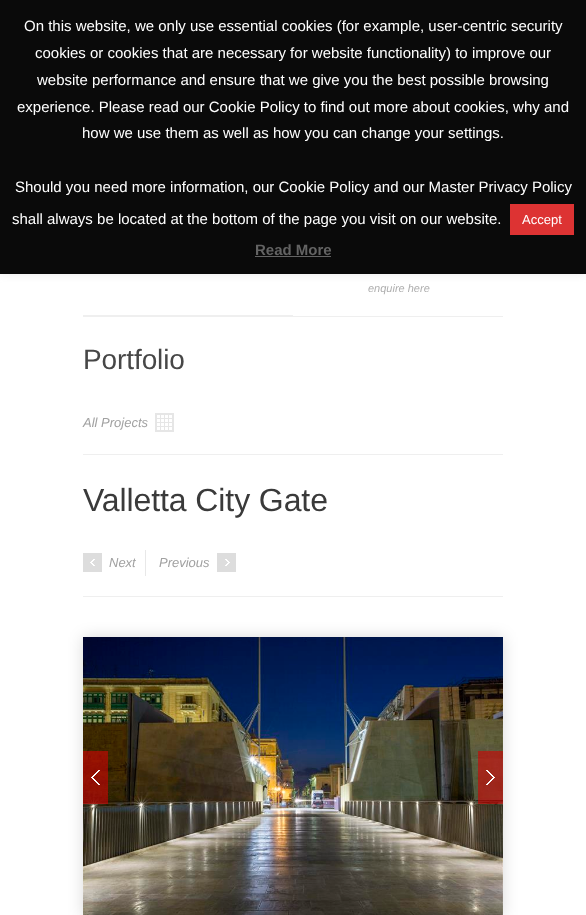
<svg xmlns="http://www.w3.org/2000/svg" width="586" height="915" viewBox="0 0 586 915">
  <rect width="100%" height="100%" fill="rgb(255,255,255)"/>
  <rect x="0" y="-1" width="586" height="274" fill="rgba(172,171,171,0.3)" filter="blur(5px)"/>
  <rect x="0" y="0" width="586" height="274" fill="rgb(10,10,10)"/>
  <g font-family="Liberation Sans" font-size="15" fill="rgb(255,255,255)">
    <text x="24" y="31">On this website, we only use essential cookies (for example, user-centric security</text>
    <text x="35" y="58">cookies or cookies that are necessary for website functionality) to improve our</text>
    <text x="37" y="85">website performance and ensure that we give you the best possible browsing</text>
    <text x="17" y="112">experience. Please read our Cookie Policy to find out more about cookies, why and</text>
    <text x="82" y="138">how we use them as well as how you can change your settings.</text>
    <text x="15" y="192">Should you need more information, our Cookie Policy and our Master Privacy Policy</text>
    <text x="12" y="224">shall always be located at the bottom of the page you visit on our website.</text>
  </g>
  <rect x="510" y="204" width="64" height="31" fill="rgb(221,51,51)"/>
  <text x="522" y="224" font-family="Liberation Sans" font-size="13" fill="rgb(255,255,255)">Accept</text>
  <text x="255" y="255" font-family="Liberation Sans" font-size="15" font-weight="bold" fill="rgb(99,99,99)">Read More</text>
  <rect x="255" y="256" width="76" height="1" fill="rgb(99,99,99)"/>
  <rect x="83" y="316" width="420" height="1" fill="rgb(239,239,239)"/>
  <text x="368" y="292" font-family="Liberation Sans" font-size="11" font-style="italic" fill="rgb(174,174,174)">enquire here</text>
  <rect x="83" y="315" width="210" height="1" fill="rgb(239,239,239)"/>
  <rect x="83" y="596" width="420" height="1" fill="rgb(239,239,239)"/>
  <text x="83" y="369" font-family="Liberation Sans" font-size="28" letter-spacing="-0.1" fill="rgb(71,71,71)">Portfolio</text>
  <text x="83" y="427" font-family="Liberation Sans" font-size="13" font-style="italic" fill="rgb(161,161,161)">All Projects</text>
  <image x="155" y="413" width="19" height="19" href="pic1.png"/>
  <rect x="83" y="454" width="420" height="1" fill="rgb(239,239,239)"/>
  <text x="83" y="511" font-family="Liberation Sans" font-size="32" letter-spacing="-0.1" fill="rgb(58,58,58)">Valletta City Gate</text>
  <rect x="145" y="550" width="1" height="26" fill="rgb(232,232,232)"/>
  <rect x="83" y="553" width="19" height="19" fill="rgb(221,221,221)"/>
  <image x="90" y="559" width="5" height="7" href="pic2.png"/>
  <g font-family="Liberation Sans" font-size="13" font-style="italic" fill="rgb(161,161,161)">
    <text x="109" y="567">Next</text>
    <text x="159" y="567">Previous</text>
  </g>
  <rect x="217" y="553" width="19" height="19" fill="rgb(221,221,221)"/>
  <image x="225" y="559" width="5" height="7" href="pic3.png"/>
  <rect x="83" y="637" width="420" height="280" fill="rgba(0,0,0,0.15)" filter="blur(7.5px)"/>
  <image x="83" y="637" width="420" height="278" href="pic4.png"/>
  <rect x="83" y="751" width="25" height="53" fill="rgba(209,4,4,0.6)"/>
  <image x="91" y="770" width="9" height="15" href="pic5.png"/>
  <rect x="478" y="751" width="25" height="53" fill="rgba(209,4,4,0.6)"/>
  <image x="486" y="770" width="9" height="15" href="pic6.png"/>
</svg>
